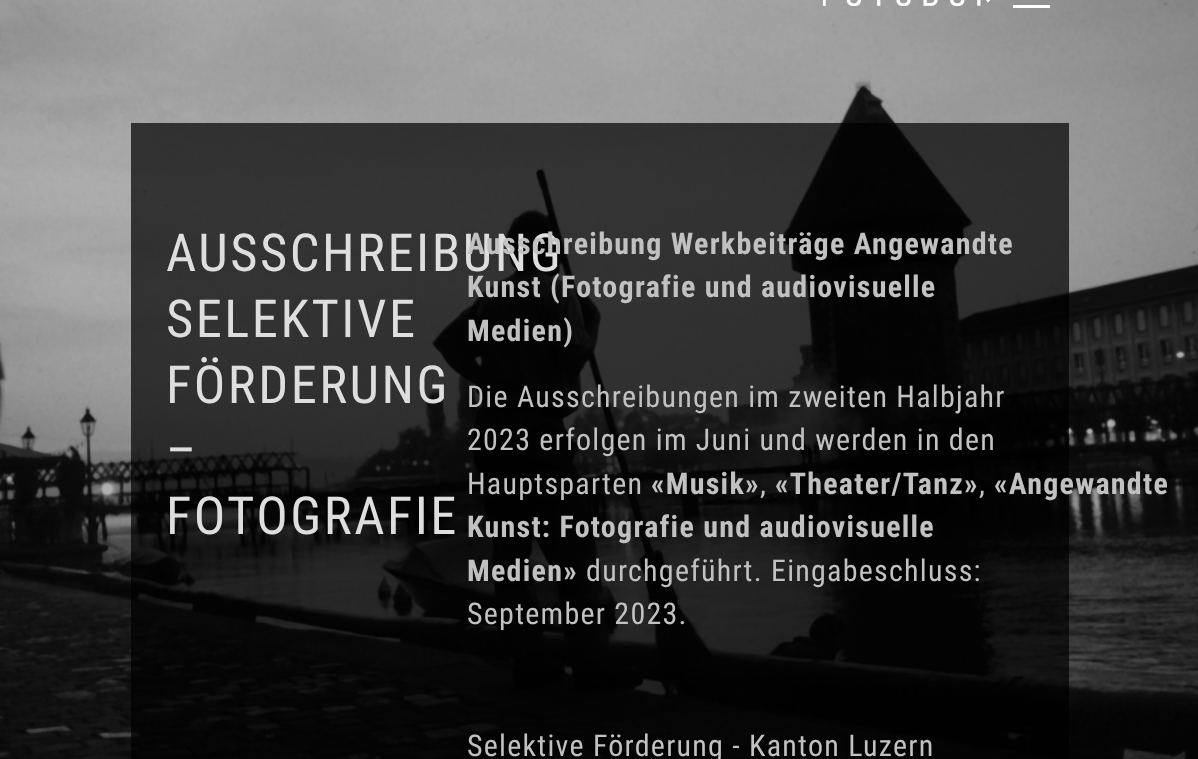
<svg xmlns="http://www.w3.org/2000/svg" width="1198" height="759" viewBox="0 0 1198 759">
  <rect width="100%" height="100%" fill="rgb(255,255,255)"/>
  <image x="0" y="0" width="1198" height="759" href="pic2.png"/>
  <image x="823" y="0" width="168" height="6" href="pic1.png"/>
  <rect x="1013" y="5" width="37" height="3" fill="rgb(255,255,255)"/>
  <rect x="131" y="123" width="938" height="636" fill="rgba(0,0,0,0.7)"/>
  <g font-family="Roboto Condensed" font-size="52.5" letter-spacing="2.5" fill="rgb(222,222,222)">
    <text>
      <tspan x="166" y="271">AUSSCHREIBUNG</tspan>
      <tspan x="166" y="337">SELEKTIVE</tspan>
      <tspan x="166" y="403">FÖRDERUNG</tspan>
      <tspan x="166" y="468">–</tspan>
      <tspan x="166" y="534">FOTOGRAFIE</tspan>
    </text>
  </g>
  <g font-family="Roboto Condensed" font-size="30" font-weight="bold" letter-spacing="1.25" fill="rgb(193,193,193)">
    <text>
      <tspan x="467" y="254">Ausschreibung Werkbeiträge Angewandte</tspan>
      <tspan x="467" y="297">Kunst (Fotografie und audiovisuelle</tspan>
      <tspan x="467" y="341">Medien)</tspan>
    </text>
  </g>
  <g font-family="Roboto Condensed" font-size="30" letter-spacing="1.25" fill="rgb(193,193,193)">
    <text>
      <tspan x="467" y="407">Die Ausschreibungen im zweiten Halbjahr</tspan>
      <tspan x="467" y="450">2023 erfolgen im Juni und werden in den</tspan>
      <tspan x="467" y="494">Hauptsparten</tspan>
    </text>
  </g>
  <text x="651" y="494" font-family="Roboto Condensed" font-size="30" font-weight="bold" letter-spacing="1.25" fill="rgb(193,193,193)">«Musik»</text>
  <text x="760" y="494" font-family="Roboto Condensed" font-size="30" letter-spacing="1.25" fill="rgb(193,193,193)">,</text>
  <text x="775" y="494" font-family="Roboto Condensed" font-size="30" font-weight="bold" letter-spacing="1.25" fill="rgb(193,193,193)">«Theater/Tanz»</text>
  <text x="979" y="494" font-family="Roboto Condensed" font-size="30" letter-spacing="1.25" fill="rgb(193,193,193)">,</text>
  <g font-family="Roboto Condensed" font-size="30" font-weight="bold" letter-spacing="1.25" fill="rgb(193,193,193)">
    <text x="994" y="494">«Angewandte</text>
    <text>
      <tspan x="467" y="537">Kunst: Fotografie und audiovisuelle</tspan>
      <tspan x="467" y="581">Medien»</tspan>
    </text>
  </g>
  <g font-family="Roboto Condensed" font-size="30" letter-spacing="1.25" fill="rgb(193,193,193)">
    <text x="586" y="581">durchgeführt. Eingabeschluss:</text>
    <text x="467" y="624">September 2023.</text>
    <text x="467" y="756">Selektive Förderung - Kanton Luzern</text>
  </g>
</svg>
